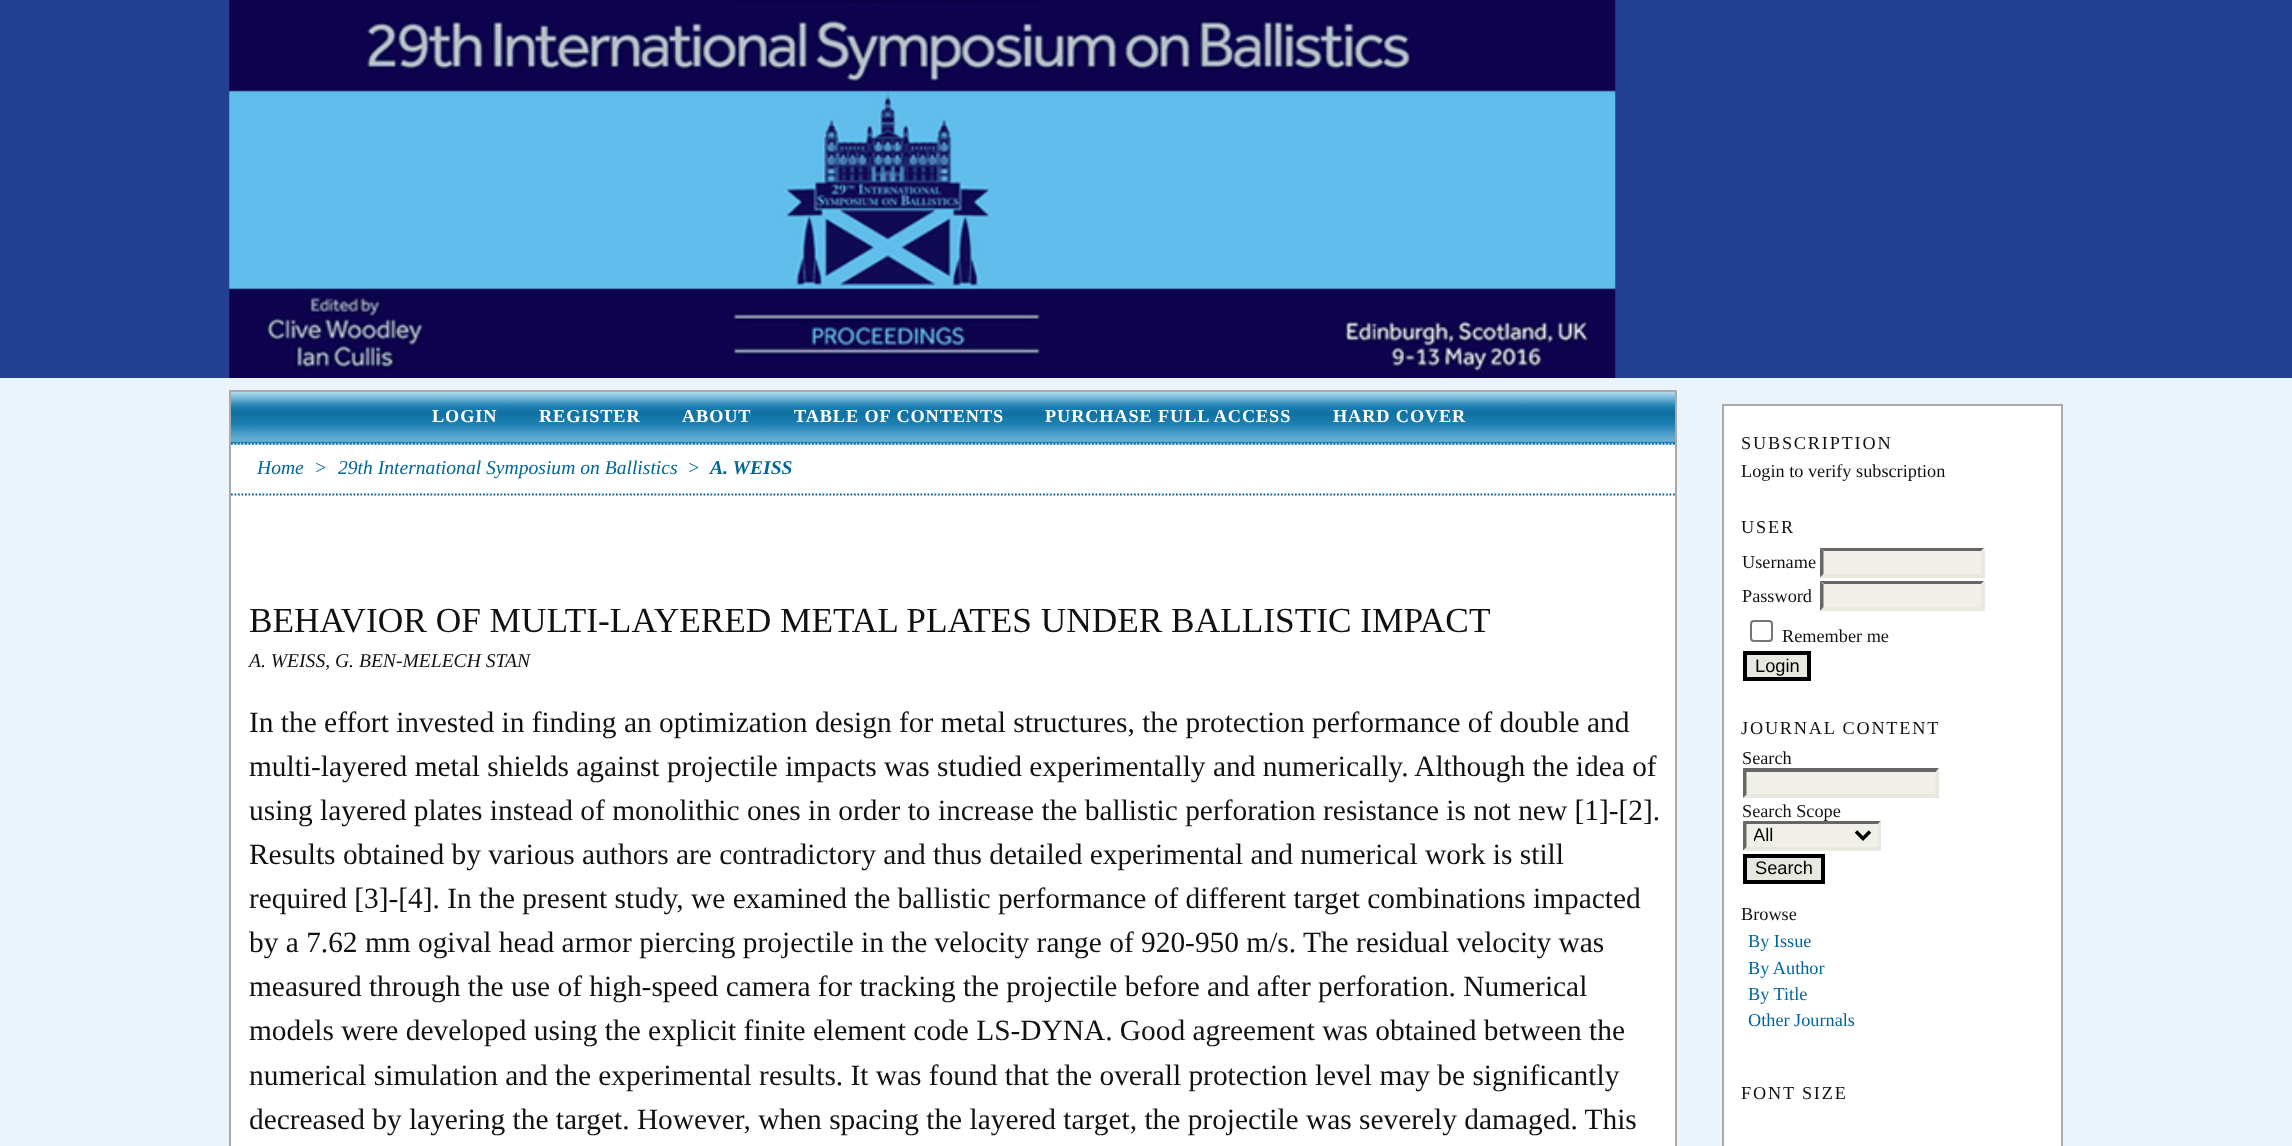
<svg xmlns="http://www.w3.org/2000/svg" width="2292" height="1146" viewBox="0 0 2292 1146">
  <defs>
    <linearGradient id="g1" gradientUnits="userSpaceOnUse" x1="944" y1="392" x2="944" y2="443"><stop offset="0" stop-color="rgb(177,220,241)"/><stop offset="0.28" stop-color="rgb(29,129,179)"/><stop offset="0.41" stop-color="rgb(15,112,161)"/><stop offset="0.64" stop-color="rgb(29,129,179)"/><stop offset="0.91" stop-color="rgb(97,172,209)"/><stop offset="0.97" stop-color="rgb(97,172,209)"/><stop offset="1" stop-color="rgb(15,112,161)"/></linearGradient>
    <linearGradient id="g2" gradientUnits="userSpaceOnUse" x1="944" y1="443" x2="944" y2="494"><stop offset="0" stop-color="rgb(177,220,241)"/><stop offset="0.28" stop-color="rgb(29,129,179)"/><stop offset="0.41" stop-color="rgb(15,112,161)"/><stop offset="0.64" stop-color="rgb(29,129,179)"/><stop offset="0.91" stop-color="rgb(97,172,209)"/><stop offset="0.97" stop-color="rgb(97,172,209)"/><stop offset="1" stop-color="rgb(15,112,161)"/></linearGradient>
    <clipPath id="clip1"><rect x="231" y="392" width="1444" height="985"/></clipPath>
    <clipPath id="clip2"><rect x="1754" y="824" width="96" height="23"/></clipPath>
  </defs>
  <rect width="100%" height="100%" fill="rgb(235,244,250)"/>
  <rect x="0" y="0" width="2292" height="378" fill="rgb(36,65,145)"/>
  <image x="229" y="0" width="1387" height="378" href="pic1.png"/>
  <rect x="231" y="445" width="1444" height="701" fill="rgb(255,255,255)"/>
  <rect x="230" y="391" width="1446" height="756" fill="none" stroke="rgb(170,170,170)" stroke-width="2"/>
  <rect x="231" y="392" width="1444" height="51" fill="url(#g1)"/>
  <rect x="231" y="443" width="1444" height="2" fill="url(#g2)"/>
  <g clip-path="url(#clip1)">
    <path d="M213.5 443.5H1675" fill="none" stroke="rgb(0,102,153)" stroke-width="1.8" stroke-dasharray="1.75 1.75"/>
  </g>
  <g font-family="Liberation Serif" font-size="18.25" font-weight="bold" letter-spacing="0.9" fill="rgb(255,255,255)">
    <text x="432" y="422">LOGIN</text>
    <text x="539" y="422">REGISTER</text>
    <text x="682" y="422">ABOUT</text>
    <text x="794" y="422">TABLE OF CONTENTS</text>
    <text x="1045" y="422">PURCHASE FULL ACCESS</text>
    <text x="1333" y="422">HARD COVER</text>
  </g>
  <path d="M231 494.5H1675" fill="none" stroke="rgb(0,102,153)" stroke-width="1.8" stroke-dasharray="1.75 1.75"/>
  <g font-family="Liberation Serif" font-size="19.6" font-style="italic" fill="rgb(0,102,153)">
    <text x="257" y="474">Home</text>
    <text x="314" y="474">&gt;</text>
    <text x="338" y="474">29th International Symposium on Ballistics</text>
    <text x="687" y="474">&gt;</text>
  </g>
  <text x="710" y="474" font-family="Liberation Serif" font-size="19.6" font-weight="bold" font-style="italic" fill="rgb(0,102,153)">A. WEISS</text>
  <text x="249" y="632" font-family="Liberation Serif" font-size="35.3" fill="rgb(17,17,17)">BEHAVIOR OF MULTI-LAYERED METAL PLATES UNDER BALLISTIC IMPACT</text>
  <text x="249" y="667" font-family="Liberation Serif" font-size="19.6" font-style="italic" fill="rgb(17,17,17)">A. WEISS, G. BEN-MELECH STAN</text>
  <g font-family="Liberation Serif" font-size="29.4" fill="rgb(17,17,17)">
    <text>
      <tspan x="249" y="732">In the effort invested in finding an optimization design for metal structures, the protection performance of double and</tspan>
      <tspan x="249" y="776">multi-layered metal shields against projectile impacts was studied experimentally and numerically. Although the idea of</tspan>
      <tspan x="249" y="820">using layered plates instead of monolithic ones in order to increase the ballistic perforation resistance is not new [1]-[2].</tspan>
      <tspan x="249" y="864">Results obtained by various authors are contradictory and thus detailed experimental and numerical work is still</tspan>
      <tspan x="249" y="908">required [3]-[4]. In the present study, we examined the ballistic performance of different target combinations impacted</tspan>
      <tspan x="249" y="952">by a 7.62 mm ogival head armor piercing projectile in the velocity range of 920-950 m/s. The residual velocity was</tspan>
      <tspan x="249" y="996">measured through the use of high-speed camera for tracking the projectile before and after perforation. Numerical</tspan>
      <tspan x="249" y="1040">models were developed using the explicit finite element code LS-DYNA. Good agreement was obtained between the</tspan>
      <tspan x="249" y="1085">numerical simulation and the experimental results. It was found that the overall protection level may be significantly</tspan>
      <tspan x="249" y="1129">decreased by layering the target. However, when spacing the layered target, the projectile was severely damaged. This</tspan>
    </text>
  </g>
  <rect x="1723" y="405" width="339" height="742" fill="rgb(255,255,255)" stroke="rgb(170,170,170)" stroke-width="2"/>
  <text x="1741" y="449" font-family="Liberation Serif" font-size="18.25" letter-spacing="1.8" fill="rgb(17,17,17)">SUBSCRIPTION</text>
  <text x="1741" y="477" font-family="Liberation Serif" font-size="18.25" fill="rgb(17,17,17)">Login to verify subscription</text>
  <text x="1741" y="533" font-family="Liberation Serif" font-size="18.25" letter-spacing="1.8" fill="rgb(17,17,17)">USER</text>
  <text x="1742" y="568" font-family="Liberation Serif" font-size="18.25" fill="rgb(17,17,17)">Username</text>
  <rect x="1820" y="548" width="165" height="30" fill="rgb(240,240,232)"/>
  <path d="M1820 548H1984L1981 551H1824Z" fill="rgb(102,102,102)"/>
  <path d="M1984.5 548V577.5L1981 574V551Z" fill="rgb(232,232,225)"/>
  <path d="M1984 578H1820L1824 574H1981Z" fill="rgb(232,232,225)"/>
  <path d="M1820 577.5V548L1823.5 551V574Z" fill="rgb(102,102,102)"/>
  <text x="1742" y="602" font-family="Liberation Serif" font-size="18.25" fill="rgb(17,17,17)">Password</text>
  <rect x="1820" y="581" width="165" height="30" fill="rgb(240,240,232)"/>
  <path d="M1820 581H1984L1981 584H1824Z" fill="rgb(102,102,102)"/>
  <path d="M1984.5 581V611L1981 607V584.5Z" fill="rgb(232,232,225)"/>
  <path d="M1984 611H1820L1824 607H1981Z" fill="rgb(232,232,225)"/>
  <path d="M1820 611V581L1823.5 584.5V607Z" fill="rgb(102,102,102)"/>
  <rect x="1751" y="621" width="21" height="20" rx="3" fill="none" stroke="rgb(118,118,118)" stroke-width="2"/>
  <text x="1782" y="642" font-family="Liberation Serif" font-size="18.25" fill="rgb(17,17,17)">Remember me</text>
  <rect x="1745" y="653" width="64" height="26" fill="rgb(232,232,225)" stroke="rgb(0,0,0)" stroke-width="4"/>
  <text x="1755" y="672" font-family="Liberation Sans" font-size="18.25" fill="rgb(0,0,0)">Login</text>
  <text x="1741" y="734" font-family="Liberation Serif" font-size="18.25" letter-spacing="1.8" fill="rgb(17,17,17)">JOURNAL CONTENT</text>
  <text x="1742" y="764" font-family="Liberation Serif" font-size="18.25" fill="rgb(17,17,17)">Search</text>
  <rect x="1743" y="768" width="196" height="30" fill="rgb(240,240,232)"/>
  <path d="M1743 768H1939L1936 772H1746Z" fill="rgb(102,102,102)"/>
  <path d="M1939 768V798L1935.5 794.5V772Z" fill="rgb(232,232,225)"/>
  <path d="M1939 798H1743L1746 794H1936Z" fill="rgb(232,232,225)"/>
  <path d="M1743 798V768L1746.5 772V794.5Z" fill="rgb(102,102,102)"/>
  <text x="1742" y="817" font-family="Liberation Serif" font-size="18.25" fill="rgb(17,17,17)">Search Scope</text>
  <rect x="1743" y="821" width="138" height="30" fill="rgb(240,240,232)"/>
  <path d="M1743 821H1881L1878 824H1746Z" fill="rgb(102,102,102)"/>
  <path d="M1881 821V850.5L1878 847V824Z" fill="rgb(232,232,225)"/>
  <path d="M1881 850H1743L1746 847H1878Z" fill="rgb(232,232,225)"/>
  <path d="M1743 850.5V821L1746.5 824V847Z" fill="rgb(102,102,102)"/>
  <path d="M1856 831.5L1863 838.5L1870 831.5" fill="none" stroke="rgb(0,0,0)" stroke-width="3.5"/>
  <g clip-path="url(#clip2)">
    <text x="1753" y="841" font-family="Liberation Sans" font-size="18.25" fill="rgb(0,0,0)">All</text>
  </g>
  <rect x="1745" y="856" width="78" height="26" fill="rgb(232,232,225)" stroke="rgb(0,0,0)" stroke-width="4"/>
  <text x="1755" y="874" font-family="Liberation Sans" font-size="18.25" fill="rgb(0,0,0)">Search</text>
  <text x="1741" y="920" font-family="Liberation Serif" font-size="18.25" fill="rgb(17,17,17)">Browse</text>
  <g font-family="Liberation Serif" font-size="18.25" fill="rgb(0,102,153)">
    <text>
      <tspan x="1748" y="947">By Issue</tspan>
      <tspan x="1748" y="974">By Author</tspan>
      <tspan x="1748" y="1000">By Title</tspan>
      <tspan x="1748" y="1026">Other Journals</tspan>
    </text>
  </g>
  <text x="1741" y="1099" font-family="Liberation Serif" font-size="18.25" letter-spacing="1.8" fill="rgb(17,17,17)">FONT SIZE</text>
</svg>
